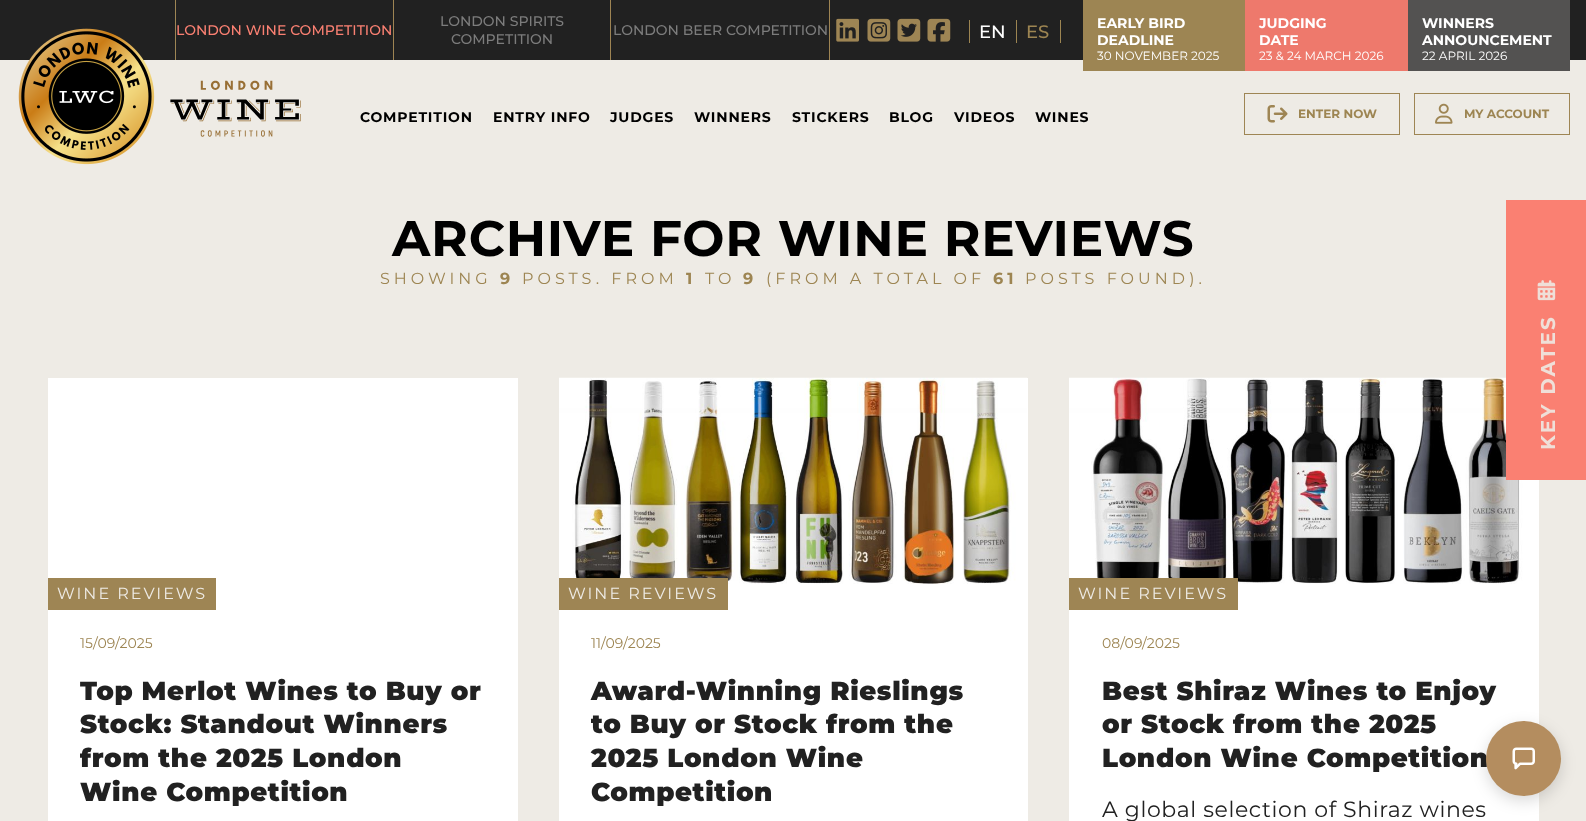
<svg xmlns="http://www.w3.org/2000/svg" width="1586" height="821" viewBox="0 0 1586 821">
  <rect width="100%" height="100%" fill="rgb(33,33,33)"/>
  <rect x="393" y="0" width="1" height="60" fill="rgb(158,132,83)"/>
  <rect x="175" y="0" width="1" height="60" fill="rgb(158,133,84)"/>
  <text x="176" y="35" font-family="Montserrat" font-size="14" font-weight="500" fill="rgb(250,128,114)">LONDON WINE COMPETITION</text>
  <rect x="610" y="0" width="1" height="60" fill="rgb(158,132,83)"/>
  <g font-family="Montserrat" font-size="14" font-weight="500" fill="rgb(124,124,124)">
    <text x="440" y="26">LONDON SPIRITS</text>
    <text x="451" y="44">COMPETITION</text>
  </g>
  <rect x="829" y="0" width="1" height="60" fill="rgb(158,132,83)"/>
  <text x="613" y="35" font-family="Montserrat" font-size="14" font-weight="500" fill="rgb(124,124,124)">LONDON BEER COMPETITION</text>
  <image x="836" y="18" width="23" height="24" href="pic1.png"/>
  <image x="867" y="18" width="24" height="24" href="pic2.png"/>
  <image x="897" y="18" width="24" height="24" href="pic3.png"/>
  <image x="927" y="18" width="24" height="24" href="pic4.png"/>
  <rect x="1016" y="20" width="1" height="23" fill="rgb(157,133,82)"/>
  <rect x="969" y="20" width="1" height="23" fill="rgb(157,133,82)"/>
  <text x="979" y="38" font-family="Montserrat" font-size="18" font-weight="500" fill="rgb(255,255,255)">EN</text>
  <rect x="1060" y="20" width="1" height="23" fill="rgb(157,133,82)"/>
  <text x="1026" y="38" font-family="Montserrat" font-size="18" font-weight="500" fill="rgb(157,133,82)">ES</text>
  <rect x="0" y="60" width="1586" height="761" fill="rgb(238,235,229)"/>
  <rect x="1083" y="0" width="162" height="71" fill="rgb(157,133,83)"/>
  <g font-family="Montserrat" font-size="14" font-weight="bold" fill="rgb(255,255,255)">
    <text>
      <tspan x="1097" y="28">EARLY BIRD</tspan>
      <tspan x="1097" y="45">DEADLINE</tspan>
    </text>
  </g>
  <text x="1097" y="60" font-family="Montserrat" font-size="12" fill="rgb(255,255,255)">30 NOVEMBER 2025</text>
  <rect x="1245" y="0" width="163" height="71" fill="rgb(238,121,108)"/>
  <g font-family="Montserrat" font-size="14" font-weight="bold" fill="rgb(255,255,255)">
    <text>
      <tspan x="1259" y="28">JUDGING</tspan>
      <tspan x="1259" y="45">DATE</tspan>
    </text>
  </g>
  <text x="1259" y="60" font-family="Montserrat" font-size="12" fill="rgb(255,255,255)">23 &amp; 24 MARCH 2026</text>
  <rect x="1408" y="0" width="162" height="71" fill="rgb(83,82,81)"/>
  <g font-family="Montserrat" font-size="14" font-weight="bold" fill="rgb(255,255,255)">
    <text>
      <tspan x="1422" y="28">WINNERS</tspan>
      <tspan x="1422" y="45">ANNOUNCEMENT</tspan>
    </text>
  </g>
  <text x="1422" y="60" font-family="Montserrat" font-size="12" fill="rgb(255,255,255)">22 APRIL 2026</text>
  <image x="18" y="28" width="137" height="137" href="pic5.png"/>
  <image x="170" y="80" width="131" height="57" href="pic6.png"/>
  <g font-family="Montserrat" font-size="14" font-weight="bold" letter-spacing="0.8" fill="rgb(0,0,0)">
    <text x="360" y="122">COMPETITION</text>
    <text x="493" y="122">ENTRY INFO</text>
    <text x="610" y="122">JUDGES</text>
    <text x="694" y="122">WINNERS</text>
    <text x="792" y="122">STICKERS</text>
    <text x="889" y="122">BLOG</text>
    <text x="954" y="122">VIDEOS</text>
    <text x="1035" y="122">WINES</text>
  </g>
  <rect x="1244.5" y="93.5" width="155" height="41" fill="none" stroke="rgb(158,133,84)"/>
  <image x="1267" y="105" width="21" height="18" href="pic7.png"/>
  <text x="1298" y="118" font-family="Montserrat" font-size="12" font-weight="bold" fill="rgb(157,133,82)">ENTER NOW</text>
  <rect x="1414.5" y="93.5" width="155" height="41" fill="none" stroke="rgb(158,133,84)"/>
  <image x="1435" y="103" width="18" height="21" href="pic8.png"/>
  <text x="1464" y="118" font-family="Montserrat" font-size="12" font-weight="bold" fill="rgb(157,133,82)">MY ACCOUNT</text>
  <text x="392" y="256" font-family="Montserrat" font-size="50" font-weight="bold" letter-spacing="0.8" fill="rgb(0,0,0)">ARCHIVE FOR WINE REVIEWS</text>
  <text x="380" y="284" font-family="Montserrat" font-size="16" letter-spacing="4" fill="rgb(157,133,82)">SHOWING</text>
  <text x="500" y="284" font-family="Montserrat" font-size="16" font-weight="bold" letter-spacing="4" fill="rgb(157,133,82)">9</text>
  <text x="522" y="284" font-family="Montserrat" font-size="16" letter-spacing="4" fill="rgb(157,133,82)">POSTS. FROM</text>
  <text x="686" y="284" font-family="Montserrat" font-size="16" font-weight="bold" letter-spacing="4" fill="rgb(157,133,82)">1</text>
  <text x="705" y="284" font-family="Montserrat" font-size="16" letter-spacing="4" fill="rgb(157,133,82)">TO</text>
  <text x="743" y="284" font-family="Montserrat" font-size="16" font-weight="bold" letter-spacing="4" fill="rgb(157,133,82)">9</text>
  <text x="766" y="284" font-family="Montserrat" font-size="16" letter-spacing="4" fill="rgb(157,133,82)">(FROM A TOTAL OF</text>
  <text x="993" y="284" font-family="Montserrat" font-size="16" font-weight="bold" letter-spacing="4" fill="rgb(157,133,82)">61</text>
  <text x="1025" y="284" font-family="Montserrat" font-size="16" letter-spacing="4" fill="rgb(157,133,82)">POSTS FOUND).</text>
  <rect x="48" y="378" width="470" height="443" fill="rgb(255,255,255)"/>
  <rect x="48" y="578" width="168" height="32" fill="rgb(158,133,84)"/>
  <text x="57" y="599" font-family="Montserrat" font-size="16" letter-spacing="2" fill="rgb(238,235,229)">WINE REVIEWS</text>
  <text x="80" y="648" font-family="Montserrat" font-size="14" fill="rgb(157,133,82)">15/09/2025</text>
  <g font-family="Montserrat" font-size="26" font-weight="900" letter-spacing="0.6" fill="rgb(33,33,33)">
    <text>
      <tspan x="80" y="700">Top Merlot Wines to Buy or</tspan>
      <tspan x="80" y="733">Stock: Standout Winners</tspan>
      <tspan x="80" y="767">from the 2025 London</tspan>
      <tspan x="80" y="801">Wine Competition</tspan>
    </text>
  </g>
  <rect x="559" y="378" width="469" height="443" fill="rgb(255,255,255)"/>
  <image x="559" y="377" width="468" height="207" href="pic9.png"/>
  <rect x="559" y="578" width="169" height="32" fill="rgb(158,133,84)"/>
  <text x="568" y="599" font-family="Montserrat" font-size="16" letter-spacing="2" fill="rgb(238,235,229)">WINE REVIEWS</text>
  <text x="591" y="648" font-family="Montserrat" font-size="14" fill="rgb(157,133,82)">11/09/2025</text>
  <g font-family="Montserrat" font-size="26" font-weight="900" letter-spacing="0.6" fill="rgb(33,33,33)">
    <text>
      <tspan x="591" y="700">Award-Winning Rieslings</tspan>
      <tspan x="591" y="733">to Buy or Stock from the</tspan>
      <tspan x="591" y="767">2025 London Wine</tspan>
      <tspan x="591" y="801">Competition</tspan>
    </text>
  </g>
  <rect x="1069" y="480" width="470" height="341" fill="rgb(255,255,255)"/>
  <image x="1069" y="377" width="469" height="207" href="pic10.png"/>
  <rect x="1069" y="578" width="169" height="32" fill="rgb(158,133,84)"/>
  <text x="1078" y="599" font-family="Montserrat" font-size="16" letter-spacing="2" fill="rgb(238,235,229)">WINE REVIEWS</text>
  <text x="1102" y="648" font-family="Montserrat" font-size="14" fill="rgb(157,133,82)">08/09/2025</text>
  <g font-family="Montserrat" font-size="26" font-weight="900" letter-spacing="0.6" fill="rgb(33,33,33)">
    <text>
      <tspan x="1102" y="700">Best Shiraz Wines to Enjoy</tspan>
      <tspan x="1102" y="733">or Stock from the 2025</tspan>
      <tspan x="1102" y="767">London Wine Competition</tspan>
    </text>
  </g>
  <text x="1102" y="817" font-family="Montserrat" font-size="22" letter-spacing="0.6" fill="rgb(33,33,33)">A global selection of Shiraz wines</text>
  <rect x="1506" y="200" width="80" height="280" fill="rgb(250,128,114)"/>
  <image x="1537" y="280" width="19" height="21" href="pic11.png"/>
  <text x="1555" y="450" transform="rotate(-90 1555 450)" font-family="Montserrat" font-size="20" font-weight="bold" letter-spacing="2" fill="rgb(239,223,216)">KEY DATES</text>
  <rect x="1486" y="726" width="75" height="75" rx="37.5" fill="rgba(0,0,0,0.15)" filter="blur(7.5px)"/>
  <circle cx="1523.5" cy="758.5" r="37.5" fill="rgb(180,141,95)"/>
  <image x="1512" y="747" width="23" height="23" href="pic12.png"/>
</svg>
